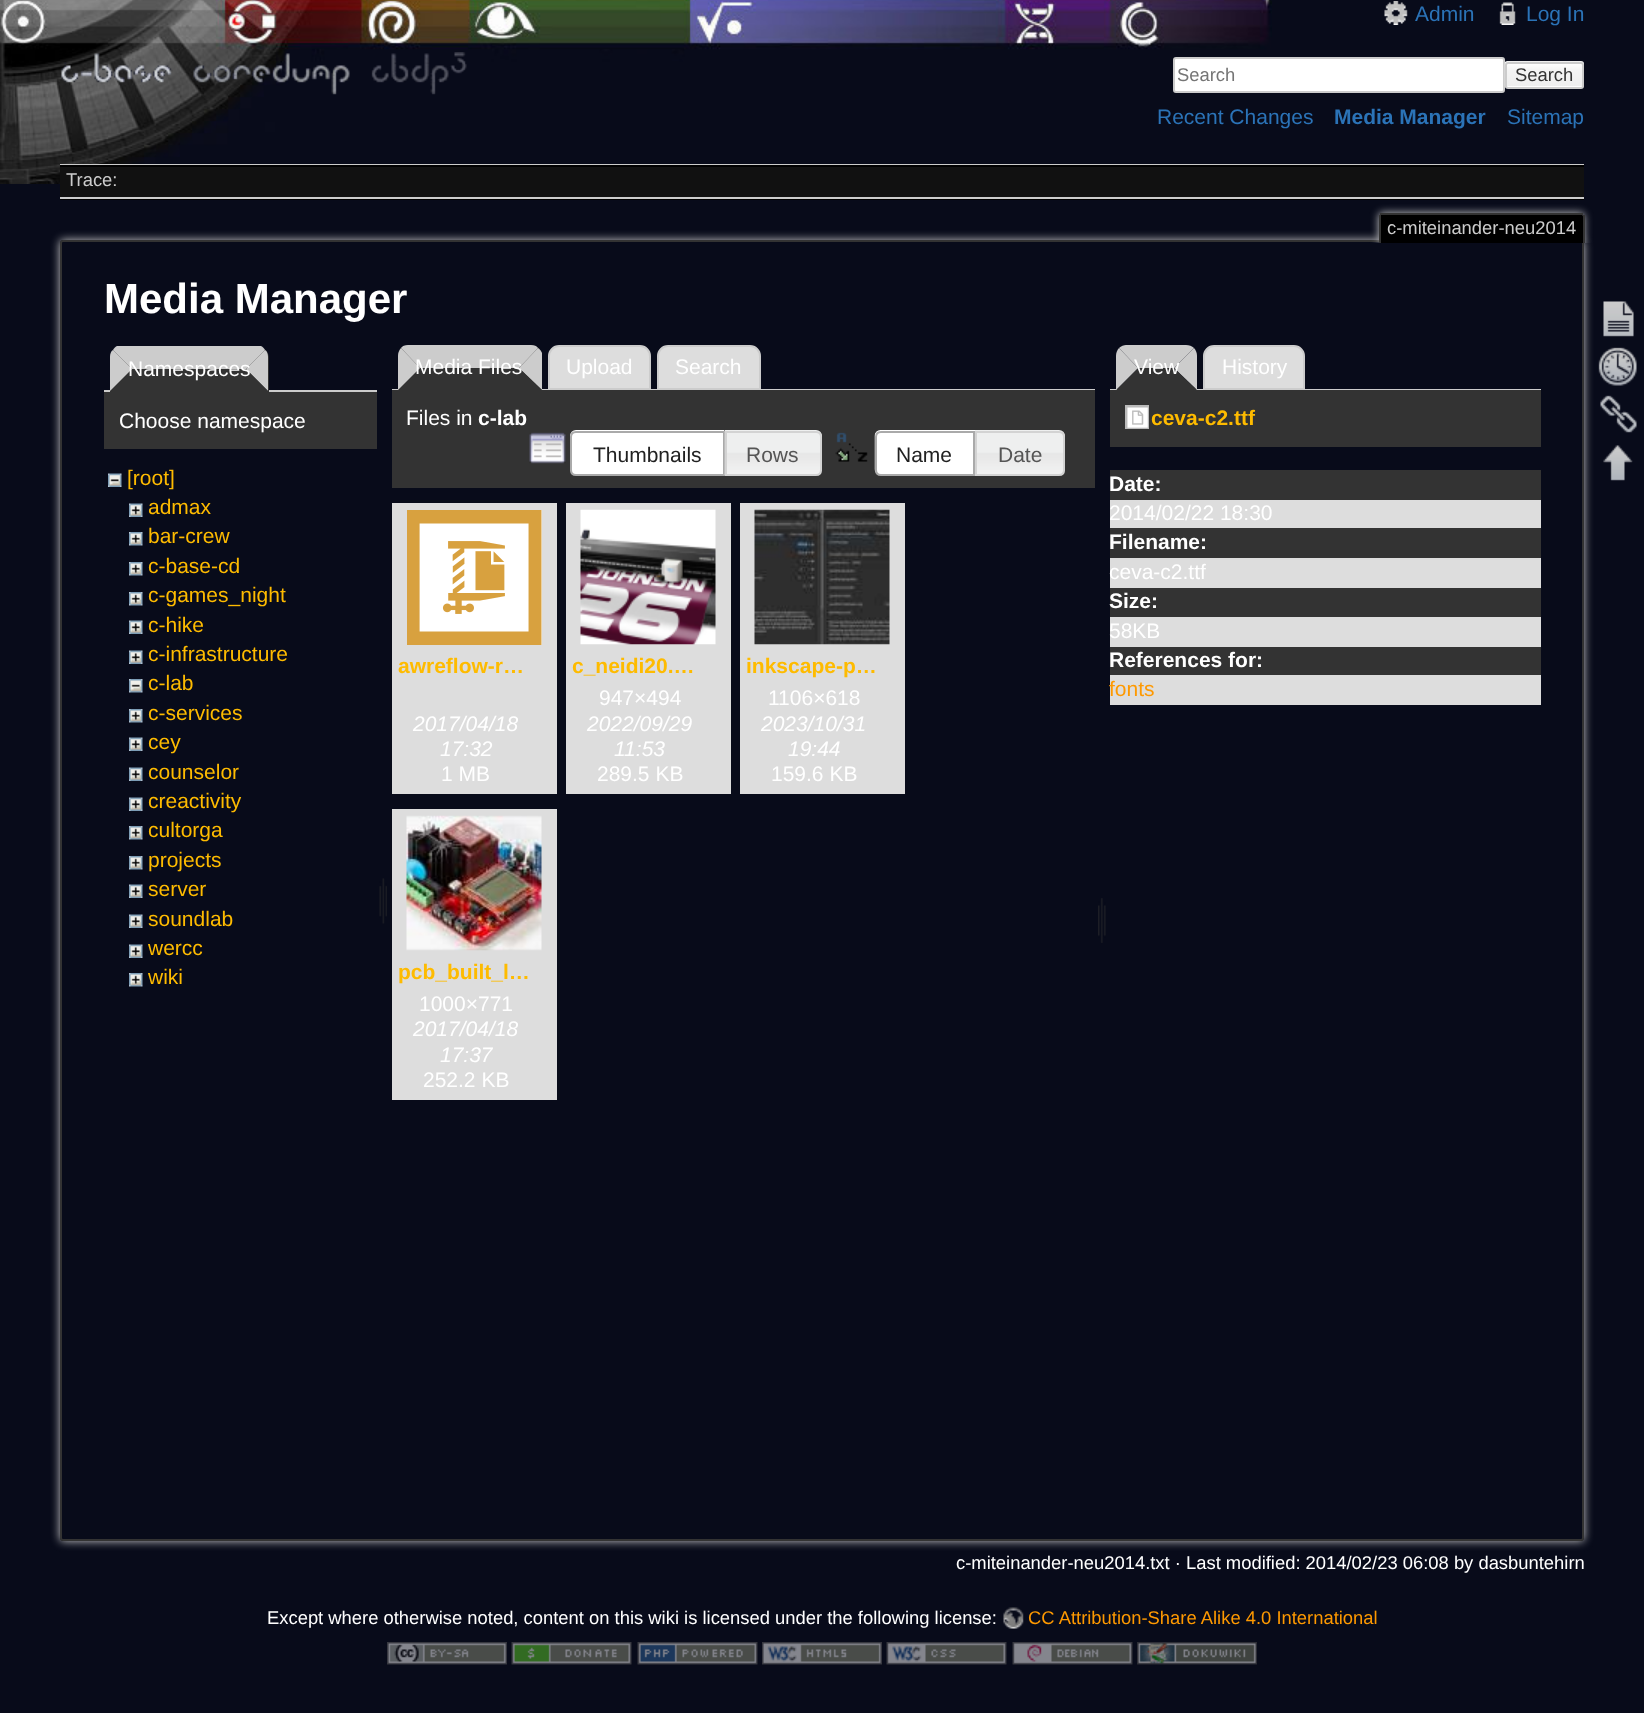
<svg xmlns="http://www.w3.org/2000/svg" width="1644" height="1713" viewBox="0 0 1644 1713">
  <defs>
    <clipPath id="clip1"><path d="M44 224H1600V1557H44ZM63 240H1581C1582.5 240 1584 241.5 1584 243V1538C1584 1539.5 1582.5 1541 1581 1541H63C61.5 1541 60 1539.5 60 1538V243C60 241.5 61.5 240 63 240Z" clip-rule="evenodd"/></clipPath>
    <clipPath id="clip2"><rect x="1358" y="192" width="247" height="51"/></clipPath>
  </defs>
  <rect width="100%" height="100%" fill="rgb(8,11,26)"/>
  <image x="0" y="0" width="1272" height="184" href="pic1.png"/>
  <image x="61" y="52" width="406" height="43" href="pic2.png"/>
  <image x="1384" y="1" width="24" height="24" href="pic3.png"/>
  <text x="1415" y="21" font-family="Liberation Sans" font-size="21" fill="rgb(43,115,183)">Admin</text>
  <image x="1499" y="2" width="17" height="23" href="pic4.png"/>
  <text x="1526" y="21" font-family="Liberation Sans" font-size="21" fill="rgb(43,115,183)">Log In</text>
  <rect x="1174" y="58" width="330" height="34" rx="2" fill="rgb(255,255,255)" stroke="rgb(204,204,204)" stroke-width="2"/>
  <text x="1177" y="81" font-family="Liberation Sans" font-size="18.4" fill="rgb(117,117,117)">Search</text>
  <image x="1504" y="61" width="80" height="27" href="pic5.png"/>
  <rect x="1506" y="63" width="77" height="25" rx="2" fill="none" stroke="rgb(204,204,204)" stroke-width="2"/>
  <text x="1515" y="81" font-family="Liberation Sans" font-size="18.4" fill="rgb(51,51,51)">Search</text>
  <text x="1157" y="124" font-family="Liberation Sans" font-size="21" fill="rgb(43,115,183)">Recent Changes</text>
  <text x="1334" y="124" font-family="Liberation Sans" font-size="21" font-weight="bold" fill="rgb(43,115,183)">Media Manager</text>
  <text x="1507" y="124" font-family="Liberation Sans" font-size="21" fill="rgb(43,115,183)">Sitemap</text>
  <rect x="60" y="167" width="1524" height="30" fill="rgb(17,17,17)"/>
  <rect x="60" y="164" width="1524" height="1" fill="rgb(204,204,204)"/>
  <rect x="60" y="199" width="1524" height="1" fill="rgb(0,0,0)"/>
  <rect x="60" y="165" width="1524" height="2" fill="rgb(0,0,0)"/>
  <rect x="60" y="197" width="1524" height="2" fill="rgb(204,204,204)"/>
  <text x="66" y="186" font-family="Liberation Sans" font-size="18.4" fill="rgb(204,204,204)">Trace:</text>
  <g clip-path="url(#clip1)">
    <rect x="60" y="240" width="1524" height="1301" rx="3" fill="rgb(204,204,204)" filter="blur(5px)"/>
  </g>
  <rect x="61" y="241" width="1522" height="1299" rx="2" fill="none" stroke="rgb(51,51,51)" stroke-width="2"/>
  <g clip-path="url(#clip2)">
    <rect x="1379" y="213" width="205" height="30" rx="3" fill="rgb(204,204,204)" filter="blur(4.5px)"/>
  </g>
  <path d="M1381.5 215H1581.5C1582.5 215 1583 215.5 1583 216.5V243H1380V216.5C1380 215.5 1380.5 215 1381.5 215Z" fill="rgb(0,0,0)"/>
  <rect x="1380" y="213" width="203" height="2" fill="rgb(51,51,51)"/>
  <rect x="1583" y="215" width="2" height="28" fill="rgb(51,51,51)"/>
  <rect x="1379" y="215" width="2" height="28" fill="rgb(51,51,51)"/>
  <text x="1387" y="234" font-family="Liberation Sans" font-size="18.4" fill="rgb(204,204,204)">c-miteinander-neu2014</text>
  <text x="104" y="313" font-family="Liberation Sans" font-size="42" font-weight="bold" fill="rgb(255,255,255)">Media Manager</text>
  <rect x="104" y="390" width="273" height="2" fill="rgb(204,204,204)"/>
  <path d="M121 347H258C264 347 269 352 269 358V392H110V358C110 352 115 347 121 347Z" fill="rgb(51,51,51)"/>
  <path d="M261 346H117C115 347 114 348 113 350L132 369H246L265 350C264 348 263 347 261 346Z" fill="rgb(204,204,204)"/>
  <path d="M265 350L246 369L268 391V357C268 354 267 351 265 350Z" fill="rgb(204,204,204)"/>
  <path d="M268 391L246 369H132L110 392H268Z" fill="rgb(51,51,51)"/>
  <path d="M110 391L132 369L113 350C111 351 110 354 110 357Z" fill="rgb(204,204,204)"/>
  <text x="128" y="376" font-family="Liberation Sans" font-size="21" fill="rgb(255,255,255)">Namespaces</text>
  <rect x="104" y="392" width="273" height="57" fill="rgb(51,51,51)"/>
  <text x="119" y="428" font-family="Liberation Sans" font-size="21" fill="rgb(255,255,255)">Choose namespace</text>
  <image x="108" y="473" width="14" height="14" href="pic6.png"/>
  <text x="127" y="485" font-family="Liberation Sans" font-size="21" fill="rgb(254,187,0)">[root]</text>
  <image x="129" y="503" width="14" height="14" href="pic7.png"/>
  <text x="148" y="514" font-family="Liberation Sans" font-size="21" fill="rgb(254,187,0)">admax</text>
  <image x="129" y="532" width="14" height="14" href="pic8.png"/>
  <text x="148" y="543" font-family="Liberation Sans" font-size="21" fill="rgb(254,187,0)">bar-crew</text>
  <image x="129" y="562" width="14" height="14" href="pic8.png"/>
  <text x="148" y="573" font-family="Liberation Sans" font-size="21" fill="rgb(254,187,0)">c-base-cd</text>
  <image x="129" y="592" width="14" height="14" href="pic8.png"/>
  <text x="148" y="602" font-family="Liberation Sans" font-size="21" fill="rgb(254,187,0)">c-games_night</text>
  <image x="129" y="620" width="14" height="14" href="pic7.png"/>
  <text x="148" y="632" font-family="Liberation Sans" font-size="21" fill="rgb(254,187,0)">c-hike</text>
  <image x="129" y="650" width="14" height="14" href="pic7.png"/>
  <text x="148" y="661" font-family="Liberation Sans" font-size="21" fill="rgb(254,187,0)">c-infrastructure</text>
  <image x="129" y="679" width="14" height="14" href="pic9.png"/>
  <text x="148" y="690" font-family="Liberation Sans" font-size="21" fill="rgb(254,187,0)">c-lab</text>
  <image x="129" y="709" width="14" height="14" href="pic8.png"/>
  <text x="148" y="720" font-family="Liberation Sans" font-size="21" fill="rgb(254,187,0)">c-services</text>
  <image x="129" y="737" width="14" height="14" href="pic7.png"/>
  <text x="148" y="749" font-family="Liberation Sans" font-size="21" fill="rgb(254,187,0)">cey</text>
  <image x="129" y="767" width="14" height="14" href="pic7.png"/>
  <text x="148" y="779" font-family="Liberation Sans" font-size="21" fill="rgb(254,187,0)">counselor</text>
  <image x="129" y="797" width="14" height="14" href="pic7.png"/>
  <text x="148" y="808" font-family="Liberation Sans" font-size="21" fill="rgb(254,187,0)">creactivity</text>
  <image x="129" y="826" width="14" height="14" href="pic8.png"/>
  <text x="148" y="837" font-family="Liberation Sans" font-size="21" fill="rgb(254,187,0)">cultorga</text>
  <image x="129" y="856" width="14" height="14" href="pic8.png"/>
  <text x="148" y="867" font-family="Liberation Sans" font-size="21" fill="rgb(254,187,0)">projects</text>
  <image x="129" y="884" width="14" height="14" href="pic7.png"/>
  <text x="148" y="896" font-family="Liberation Sans" font-size="21" fill="rgb(254,187,0)">server</text>
  <image x="129" y="914" width="14" height="14" href="pic7.png"/>
  <text x="148" y="926" font-family="Liberation Sans" font-size="21" fill="rgb(254,187,0)">soundlab</text>
  <image x="129" y="944" width="14" height="14" href="pic7.png"/>
  <text x="148" y="955" font-family="Liberation Sans" font-size="21" fill="rgb(254,187,0)">wercc</text>
  <image x="129" y="973" width="14" height="14" href="pic8.png"/>
  <text x="148" y="984" font-family="Liberation Sans" font-size="21" fill="rgb(254,187,0)">wiki</text>
  <image x="379" y="878" width="8" height="46" href="pic10.png"/>
  <path d="M559 346H640C645.5 346 650 350.5 650 356V389H549V356C549 350.5 553.5 346 559 346Z" fill="rgb(221,221,221)" stroke="rgb(204,204,204)" stroke-width="2"/>
  <path d="M668 346H750C755.5 346 760 350.5 760 356V389H658V356C658 350.5 662.5 346 668 346Z" fill="rgb(221,221,221)" stroke="rgb(204,204,204)" stroke-width="2"/>
  <rect x="392" y="389" width="703" height="1" fill="rgb(204,204,204)"/>
  <path d="M409 345H531C537 345 542 350 542 356V390H398V356C398 350 403 345 409 345Z" fill="rgb(51,51,51)"/>
  <path d="M408 345H531C534 345 537 346 538 348L519 368H420L401 348C402 346 405 345 408 345Z" fill="rgb(204,204,204)"/>
  <path d="M538 348L519 368L542 390V353C541 351 540 349 538 348Z" fill="rgb(204,204,204)"/>
  <path d="M542 390L519 368H420L398 390Z" fill="rgb(51,51,51)"/>
  <path d="M401 348C399 350 398 353 398 356V390L420 368Z" fill="rgb(204,204,204)"/>
  <g font-family="Liberation Sans" font-size="21" fill="rgb(255,255,255)">
    <text x="415" y="374">Media Files</text>
    <text x="566" y="374">Upload</text>
    <text x="675" y="374">Search</text>
  </g>
  <rect x="392" y="390" width="703" height="98" fill="rgb(51,51,51)"/>
  <text x="406" y="425" font-family="Liberation Sans" font-size="21" fill="rgb(255,255,255)">Files in</text>
  <text x="478" y="425" font-family="Liberation Sans" font-size="21" font-weight="bold" fill="rgb(255,255,255)">c-lab</text>
  <image x="529" y="432" width="37" height="32" href="pic11.png"/>
  <image x="570" y="430" width="155" height="44" href="pic12.png"/>
  <path d="M576 432H724V475H576C573 475 571 473 571 470V437C571 434 573 432 576 432Z" fill="none" stroke="rgb(170,170,170)" stroke-width="2"/>
  <text x="593" y="462" font-family="Liberation Sans" font-size="21" fill="rgb(33,33,33)">Thumbnails</text>
  <image x="724" y="430" width="98" height="45" href="pic13.png"/>
  <path d="M726 432H816C819 432 821 434 821 437V470C821 473 819 475 816 475H726Z" fill="none" stroke="rgb(211,211,211)" stroke-width="2"/>
  <text x="746" y="462" font-family="Liberation Sans" font-size="21" fill="rgb(85,85,85)">Rows</text>
  <image x="835" y="432" width="33" height="30" href="pic14.png"/>
  <image x="874" y="430" width="101" height="44" href="pic15.png"/>
  <path d="M881 432H974V475H881C878 475 876 473 876 470V437C876 434 878 432 881 432Z" fill="none" stroke="rgb(170,170,170)" stroke-width="2"/>
  <text x="896" y="462" font-family="Liberation Sans" font-size="21" fill="rgb(33,33,33)">Name</text>
  <image x="975" y="430" width="90" height="44" href="pic16.png"/>
  <path d="M976 432H1059C1062 432 1064 434 1064 437V470C1064 473 1062 475 1059 475H976Z" fill="none" stroke="rgb(211,211,211)" stroke-width="2"/>
  <text x="998" y="462" font-family="Liberation Sans" font-size="21" fill="rgb(85,85,85)">Date</text>
  <rect x="392" y="503" width="165" height="291" fill="rgb(221,221,221)"/>
  <image x="407" y="510" width="135" height="135" href="pic17.png"/>
  <text x="398" y="673" font-family="Liberation Sans" font-size="21" font-weight="bold" fill="rgb(254,187,0)">awreflow-r…</text>
  <g font-family="Liberation Sans" font-size="21" font-style="italic" fill="rgb(255,255,255)">
    <text x="413" y="731">2017/04/18</text>
    <text x="440" y="756">17:32</text>
  </g>
  <text x="441" y="781" font-family="Liberation Sans" font-size="21" fill="rgb(255,255,255)">1 MB</text>
  <rect x="566" y="503" width="165" height="291" fill="rgb(221,221,221)"/>
  <image x="580" y="509" width="136" height="136" href="pic18.png"/>
  <text x="572" y="673" font-family="Liberation Sans" font-size="21" font-weight="bold" fill="rgb(254,187,0)">c_neidi20.…</text>
  <text x="599" y="705" font-family="Liberation Sans" font-size="21" fill="rgb(255,255,255)">947×494</text>
  <g font-family="Liberation Sans" font-size="21" font-style="italic" fill="rgb(255,255,255)">
    <text x="587" y="731">2022/09/29</text>
    <text x="614" y="756">11:53</text>
  </g>
  <text x="597" y="781" font-family="Liberation Sans" font-size="21" fill="rgb(255,255,255)">289.5 KB</text>
  <rect x="740" y="503" width="165" height="291" fill="rgb(221,221,221)"/>
  <image x="754" y="509" width="136" height="136" href="pic19.png"/>
  <text x="746" y="673" font-family="Liberation Sans" font-size="21" font-weight="bold" fill="rgb(254,187,0)">inkscape-p…</text>
  <text x="768" y="705" font-family="Liberation Sans" font-size="21" fill="rgb(255,255,255)">1106×618</text>
  <g font-family="Liberation Sans" font-size="21" font-style="italic" fill="rgb(255,255,255)">
    <text x="761" y="731">2023/10/31</text>
    <text x="788" y="756">19:44</text>
  </g>
  <text x="771" y="781" font-family="Liberation Sans" font-size="21" fill="rgb(255,255,255)">159.6 KB</text>
  <rect x="392" y="809" width="165" height="291" fill="rgb(221,221,221)"/>
  <image x="406" y="815" width="136" height="136" href="pic20.png"/>
  <text x="398" y="979" font-family="Liberation Sans" font-size="21" font-weight="bold" fill="rgb(254,187,0)">pcb_built_l…</text>
  <text x="419" y="1011" font-family="Liberation Sans" font-size="21" fill="rgb(255,255,255)">1000×771</text>
  <g font-family="Liberation Sans" font-size="21" font-style="italic" fill="rgb(255,255,255)">
    <text x="413" y="1036">2017/04/18</text>
    <text x="440" y="1062">17:37</text>
  </g>
  <text x="423" y="1087" font-family="Liberation Sans" font-size="21" fill="rgb(255,255,255)">252.2 KB</text>
  <image x="1098" y="898" width="8" height="45" href="pic21.png"/>
  <path d="M1126 345H1186C1189 345 1192 346 1194 348L1174 368H1138L1119 348C1121 346 1124 345 1126 345Z" fill="rgb(204,204,204)"/>
  <path d="M1214 346H1294C1299.5 346 1304 350.5 1304 356V389H1204V356C1204 350.5 1208.5 346 1214 346Z" fill="rgb(221,221,221)" stroke="rgb(204,204,204)" stroke-width="2"/>
  <rect x="1110" y="389" width="431" height="1" fill="rgb(204,204,204)"/>
  <path d="M1194 348L1174 368L1197 390V356C1197 353 1196 350 1194 348Z" fill="rgb(204,204,204)"/>
  <path d="M1197 390L1174 368H1138L1116 390Z" fill="rgb(51,51,51)"/>
  <path d="M1116 390V356C1116 353 1117 350 1119 348L1138 368Z" fill="rgb(204,204,204)"/>
  <g font-family="Liberation Sans" font-size="21" fill="rgb(255,255,255)">
    <text x="1134" y="374">View</text>
    <text x="1222" y="374">History</text>
  </g>
  <rect x="1110" y="390" width="431" height="57" fill="rgb(51,51,51)"/>
  <image x="1125" y="405" width="24" height="24" href="pic22.png"/>
  <text x="1151" y="425" font-family="Liberation Sans" font-size="21" font-weight="bold" fill="rgb(254,187,0)">ceva-c2.ttf</text>
  <rect x="1110" y="470" width="431" height="30" fill="rgb(51,51,51)"/>
  <text x="1109" y="491" font-family="Liberation Sans" font-size="21" font-weight="bold" fill="rgb(255,255,255)">Date:</text>
  <rect x="1110" y="500" width="431" height="28" fill="rgb(221,221,221)"/>
  <text x="1109" y="520" font-family="Liberation Sans" font-size="21" fill="rgb(255,255,255)">2014/02/22 18:30</text>
  <rect x="1110" y="528" width="431" height="30" fill="rgb(51,51,51)"/>
  <text x="1109" y="549" font-family="Liberation Sans" font-size="21" font-weight="bold" fill="rgb(255,255,255)">Filename:</text>
  <rect x="1110" y="558" width="431" height="30" fill="rgb(221,221,221)"/>
  <text x="1109" y="579" font-family="Liberation Sans" font-size="21" fill="rgb(255,255,255)">ceva-c2.ttf</text>
  <rect x="1110" y="588" width="431" height="29" fill="rgb(51,51,51)"/>
  <text x="1109" y="608" font-family="Liberation Sans" font-size="21" font-weight="bold" fill="rgb(255,255,255)">Size:</text>
  <rect x="1110" y="617" width="431" height="30" fill="rgb(221,221,221)"/>
  <text x="1109" y="638" font-family="Liberation Sans" font-size="21" fill="rgb(255,255,255)">58KB</text>
  <rect x="1110" y="647" width="431" height="28" fill="rgb(51,51,51)"/>
  <text x="1109" y="667" font-family="Liberation Sans" font-size="21" font-weight="bold" fill="rgb(255,255,255)">References for:</text>
  <rect x="1110" y="675" width="431" height="30" fill="rgb(221,221,221)"/>
  <text x="1109" y="696" font-family="Liberation Sans" font-size="21" fill="rgb(254,153,0)">fonts</text>
  <text x="956" y="1569" font-family="Liberation Sans" font-size="18.4" fill="rgb(255,255,255)">c-miteinander-neu2014.txt · Last modified: 2014/02/23 06:08 by dasbuntehirn</text>
  <image x="1603" y="301" width="31" height="36" href="pic23.png"/>
  <image x="1598" y="347" width="39" height="39" href="pic24.png"/>
  <image x="1600" y="395" width="37" height="38" href="pic25.png"/>
  <image x="1603" y="445" width="30" height="36" href="pic26.png"/>
  <text x="267" y="1624" font-family="Liberation Sans" font-size="18.4" fill="rgb(255,255,255)">Except where otherwise noted, content on this wiki is licensed under the following license:</text>
  <image x="1003" y="1607" width="21" height="22" href="pic27.png"/>
  <text x="1028" y="1624" font-family="Liberation Sans" font-size="18.4" fill="rgb(254,153,0)">CC Attribution-Share Alike 4.0 International</text>
  <image x="387" y="1642" width="120" height="23" href="pic28.png"/>
  <image x="511" y="1642" width="121" height="23" href="pic29.png"/>
  <image x="637" y="1642" width="121" height="23" href="pic30.png"/>
  <image x="762" y="1642" width="120" height="23" href="pic31.png"/>
  <image x="886" y="1642" width="121" height="23" href="pic32.png"/>
  <image x="1012" y="1642" width="121" height="23" href="pic33.png"/>
  <image x="1137" y="1642" width="120" height="23" href="pic34.png"/>
</svg>
